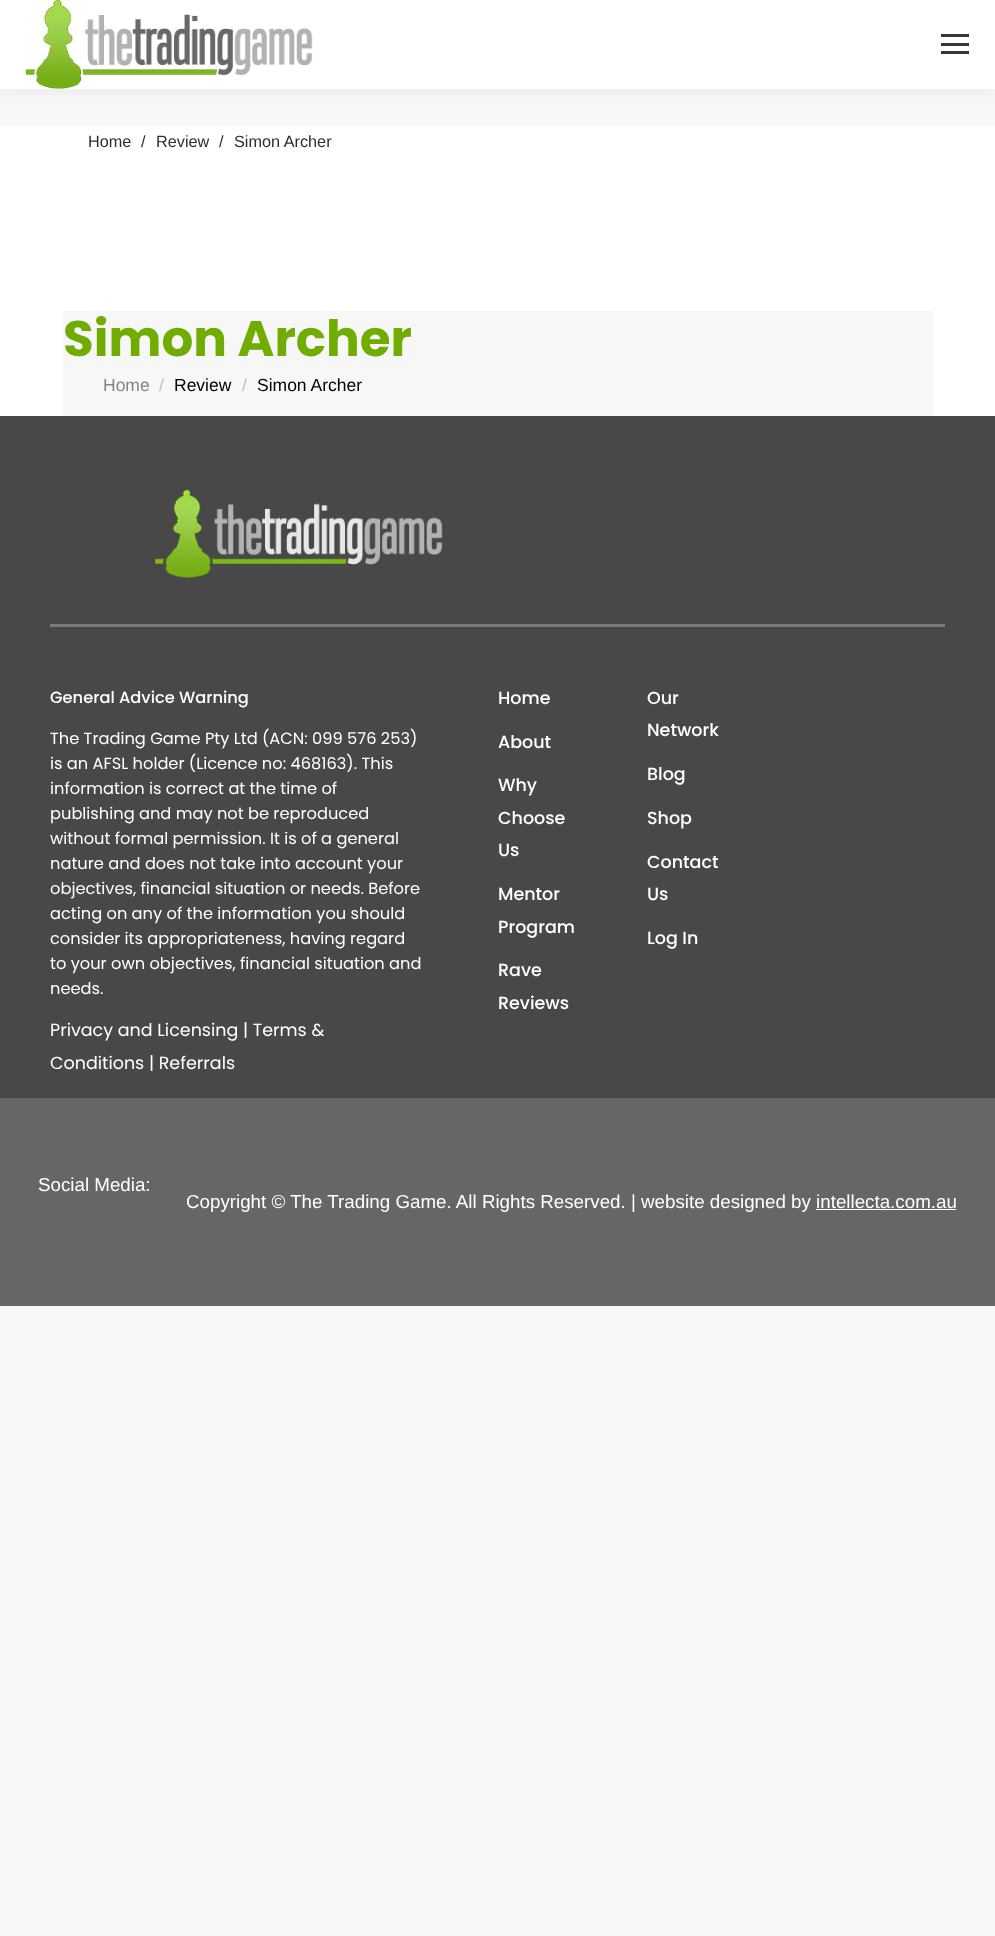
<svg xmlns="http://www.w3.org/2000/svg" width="995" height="1936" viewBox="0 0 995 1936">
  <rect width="100%" height="100%" fill="rgb(248,248,249)"/>
  <rect x="0" y="126" width="995" height="290" fill="rgb(255,255,255)"/>
  <rect x="-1" y="-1" width="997" height="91" fill="rgba(0,0,0,0.07)" filter="blur(9.5px)"/>
  <rect x="0" y="0" width="995" height="89" fill="rgb(255,255,255)"/>
  <image x="25" y="0" width="288" height="89" href="pic1.png"/>
  <rect x="941" y="34" width="28" height="3" fill="rgb(51,53,57)"/>
  <rect x="941" y="43" width="28" height="3" fill="rgb(51,53,57)"/>
  <rect x="941" y="51" width="28" height="3" fill="rgb(51,53,57)"/>
  <g font-family="Liberation Sans" font-size="16.25" fill="rgb(45,45,45)">
    <text x="88" y="147">Home</text>
    <text x="141" y="147">/</text>
    <text x="156" y="147">Review</text>
    <text x="219" y="147">/</text>
    <text x="234" y="147">Simon Archer</text>
  </g>
  <rect x="63" y="311" width="870" height="105" fill="rgb(247,247,247)"/>
  <text x="63" y="356" font-family="Poppins" font-size="50" font-weight="bold" fill="rgb(112,172,1)">Simon Archer</text>
  <text x="103" y="391" font-family="Liberation Sans" font-size="17.5" fill="rgb(132,132,132)">Home</text>
  <text x="159" y="391" font-family="Liberation Sans" font-size="17.5" fill="rgb(190,190,190)">/</text>
  <text x="174" y="391" font-family="Liberation Sans" font-size="17.5" fill="rgb(0,0,0)">Review</text>
  <text x="242" y="391" font-family="Liberation Sans" font-size="17.5" fill="rgb(190,190,190)">/</text>
  <text x="257" y="391" font-family="Liberation Sans" font-size="17.5" fill="rgb(0,0,0)">Simon Archer</text>
  <rect x="0" y="416" width="995" height="682" fill="rgb(72,72,72)"/>
  <image x="155" y="489" width="288" height="89" href="pic2.png"/>
  <rect x="50" y="624" width="895" height="3" fill="rgb(122,122,122)"/>
  <text x="50" y="703" font-family="Poppins" font-size="16.25" font-weight="500" fill="rgb(255,255,255)">General Advice Warning</text>
  <g font-family="Poppins" font-size="16.25" fill="rgb(255,255,255)">
    <text>
      <tspan x="50" y="744">The Trading Game Pty Ltd (ACN: 099 576 253)</tspan>
      <tspan x="50" y="769">is an AFSL holder (Licence no: 468163). This</tspan>
      <tspan x="50" y="794">information is correct at the time of</tspan>
      <tspan x="50" y="819">publishing and may not be reproduced</tspan>
      <tspan x="50" y="844">without formal permission. It is of a general</tspan>
      <tspan x="50" y="869">nature and does not take into account your</tspan>
      <tspan x="50" y="894">objectives, financial situation or needs. Before</tspan>
      <tspan x="50" y="919">acting on any of the information you should</tspan>
      <tspan x="50" y="944">consider its appropriateness, having regard</tspan>
      <tspan x="50" y="969">to your own objectives, financial situation and</tspan>
      <tspan x="50" y="994">needs.</tspan>
    </text>
  </g>
  <g font-family="Poppins" font-size="17.5" fill="rgb(255,255,255)">
    <text>
      <tspan x="50" y="1036">Privacy and Licensing | Terms &amp;</tspan>
      <tspan x="50" y="1069">Conditions | Referrals</tspan>
    </text>
  </g>
  <g font-family="Poppins" font-size="17.5" font-weight="500" fill="rgb(255,255,255)">
    <text x="498" y="704">Home</text>
    <text x="498" y="748">About</text>
    <text>
      <tspan x="498" y="791">Why</tspan>
      <tspan x="498" y="824">Choose</tspan>
      <tspan x="498" y="856">Us</tspan>
    </text>
    <text>
      <tspan x="498" y="900">Mentor</tspan>
      <tspan x="498" y="933">Program</tspan>
    </text>
    <text>
      <tspan x="498" y="976">Rave</tspan>
      <tspan x="498" y="1009">Reviews</tspan>
    </text>
    <text>
      <tspan x="647" y="704">Our</tspan>
      <tspan x="647" y="736">Network</tspan>
    </text>
    <text x="647" y="780">Blog</text>
    <text x="647" y="824">Shop</text>
    <text>
      <tspan x="647" y="868">Contact</tspan>
      <tspan x="647" y="900">Us</tspan>
    </text>
    <text x="647" y="944">Log In</text>
  </g>
  <rect x="0" y="1098" width="995" height="208" fill="rgb(102,102,102)"/>
  <g font-family="Liberation Sans" font-size="18.75" fill="rgb(255,255,255)">
    <text x="38" y="1191">Social Media:</text>
    <text x="186" y="1208">Copyright © The Trading Game. All Rights Reserved. | website designed by intellecta.com.au</text>
  </g>
  <rect x="816" y="1209" width="140" height="1" fill="rgb(255,255,255)"/>
</svg>
